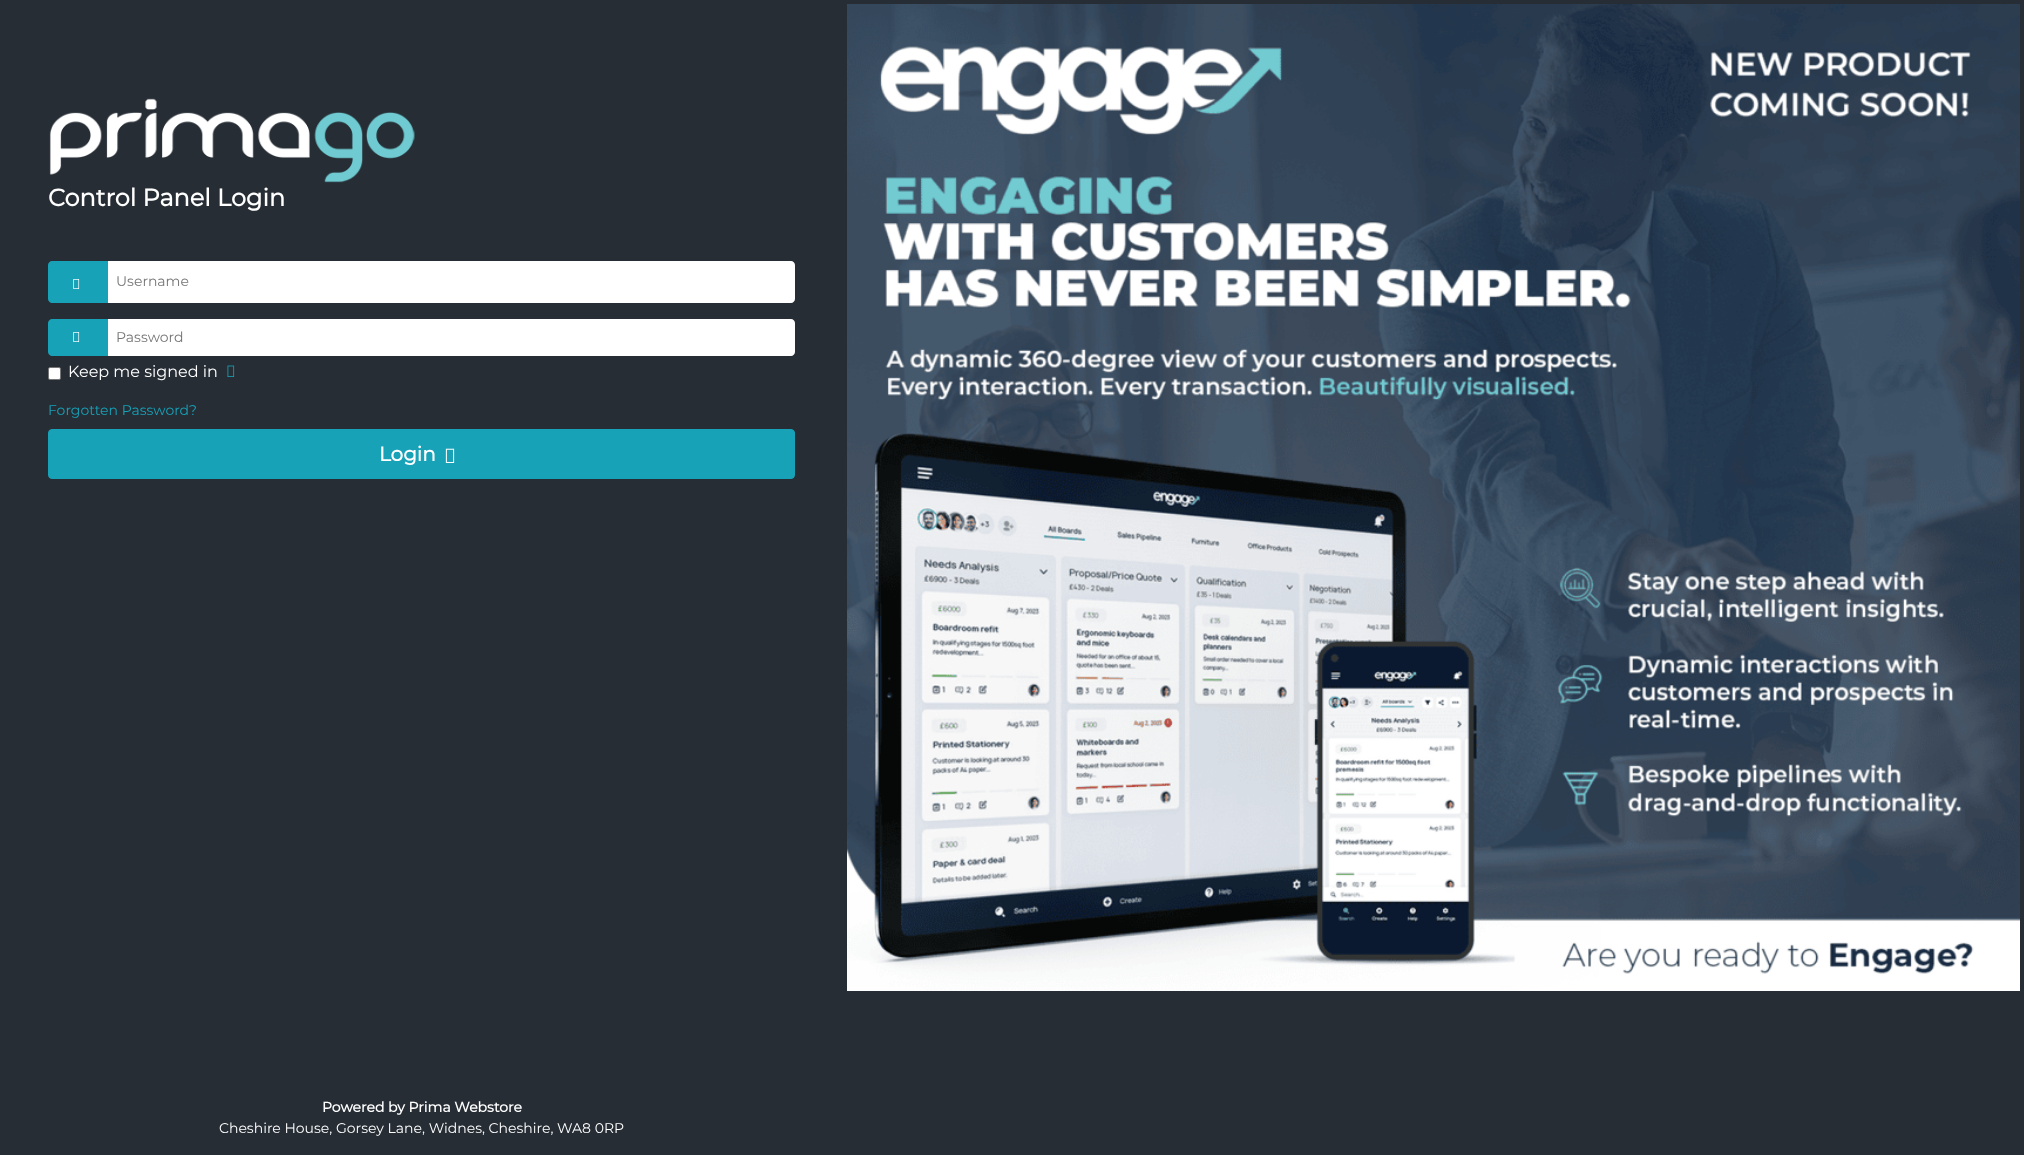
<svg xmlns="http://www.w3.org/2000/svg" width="2024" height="1155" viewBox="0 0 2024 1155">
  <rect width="100%" height="100%" fill="rgb(38,45,53)"/>
  <image x="49" y="98" width="366" height="85" href="pic1.png"/>
  <text x="48" y="206" font-family="Montserrat" font-size="24" font-weight="bold" fill="rgb(255,255,255)">Control Panel Login</text>
  <path d="M52 261H108V303H52C50 303 48 301 48 299V265C48 263 50 261 52 261Z" fill="rgb(23,162,184)"/>
  <image x="73" y="279" width="7" height="10" href="pic2.png"/>
  <path d="M108 261H791C793 261 795 263 795 265V299C795 301 793 303 791 303H108Z" fill="rgb(255,255,255)"/>
  <text x="116" y="286" font-family="Montserrat" font-size="14" font-weight="100" fill="rgb(117,117,117)">Username</text>
  <path d="M52 319H108V356H52C50 356 48 354 48 352V323C48 321 50 319 52 319Z" fill="rgb(23,162,184)"/>
  <image x="73" y="332" width="7" height="10" href="pic2.png"/>
  <path d="M108 319H791C793 319 795 321 795 323V352C795 354 793 356 791 356H108Z" fill="rgb(255,255,255)"/>
  <text x="116" y="342" font-family="Montserrat" font-size="14" font-weight="100" fill="rgb(117,117,117)">Password</text>
  <rect x="48.5" y="367.5" width="12" height="12" rx="1.5" fill="rgb(255,255,255)" stroke="rgb(118,118,118)"/>
  <text x="68" y="377" font-family="Montserrat" font-size="16" font-weight="100" fill="rgb(255,255,255)">Keep me signed in</text>
  <image x="227" y="365" width="8" height="12" href="pic3.png"/>
  <text x="48" y="415" font-family="Montserrat" font-size="14" font-weight="100" fill="rgb(23,162,184)">Forgotten Password?</text>
  <rect x="48.5" y="429.5" width="746" height="49" rx="3.5" fill="rgb(23,162,184)" stroke="rgb(23,162,184)"/>
  <text x="379" y="461" font-family="Montserrat" font-size="20" font-weight="bold" fill="rgb(255,255,255)">Login</text>
  <image x="445" y="448" width="10" height="15" href="pic4.png"/>
  <text x="322" y="1112" font-family="Montserrat" font-size="14" font-weight="bold" fill="rgb(255,255,255)">Powered by Prima Webstore</text>
  <text x="219" y="1133" font-family="Montserrat" font-size="14" font-weight="100" fill="rgb(255,255,255)">Cheshire House, Gorsey Lane, Widnes, Cheshire, WA8 0RP</text>
  <image x="847" y="4" width="1173" height="987" href="pic5.png"/>
</svg>
